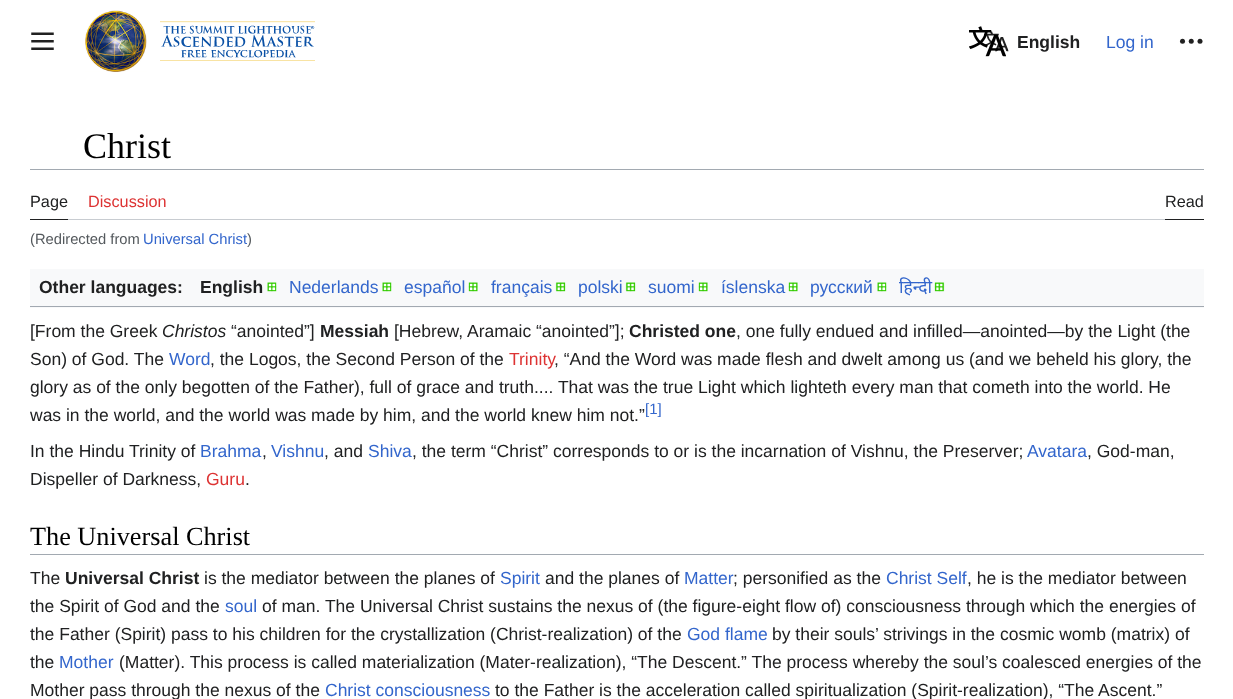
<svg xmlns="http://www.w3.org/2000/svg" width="1233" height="699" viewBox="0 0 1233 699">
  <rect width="100%" height="100%" fill="rgb(255,255,255)"/>
  <image x="31" y="32" width="23" height="18" href="pic1.png"/>
  <image x="85" y="10" width="62" height="62" href="pic2.png"/>
  <image x="160" y="21" width="155" height="40" href="pic3.png"/>
  <image x="969" y="26" width="37" height="31" href="pic4.png"/>
  <image x="984" y="31" width="25" height="21" href="pic5.png"/>
  <text x="1017" y="48" font-family="Liberation Sans" font-size="17.5" font-weight="bold" fill="rgb(32,33,34)">English</text>
  <text x="1106" y="48" font-family="Liberation Sans" font-size="17.5" fill="rgb(51,102,204)">Log in</text>
  <image x="1179" y="38" width="24" height="6" href="pic6.png"/>
  <path d="M30 169V170H1204V124V169Z" fill="rgb(162,169,177)"/>
  <text x="83" y="158" font-family="Liberation Serif" font-size="36" fill="rgb(0,0,0)">Christ</text>
  <path d="M30 219V220H1204V170V219Z" fill="rgb(200,204,209)"/>
  <rect x="30" y="219" width="38" height="1" fill="rgb(32,33,34)"/>
  <text x="30" y="207" font-family="Liberation Sans" font-size="16.25" fill="rgb(32,33,34)">Page</text>
  <text x="88" y="207" font-family="Liberation Sans" font-size="16.25" fill="rgb(221,51,51)">Discussion</text>
  <rect x="1165" y="219" width="39" height="1" fill="rgb(32,33,34)"/>
  <text x="1165" y="207" font-family="Liberation Sans" font-size="16.25" fill="rgb(32,33,34)">Read</text>
  <text x="30" y="244" font-family="Liberation Sans" font-size="14.75" fill="rgb(84,89,93)">(Redirected from</text>
  <text x="143" y="244" font-family="Liberation Sans" font-size="14.75" fill="rgb(51,102,204)">Universal Christ</text>
  <text x="247" y="244" font-family="Liberation Sans" font-size="14.75" fill="rgb(84,89,93)">)</text>
  <rect x="30" y="269" width="1174" height="39" fill="rgb(248,249,250)"/>
  <rect x="30" y="306" width="1174" height="1" fill="rgb(162,169,177)"/>
  <g font-family="Liberation Sans" font-size="17.5" font-weight="bold" fill="rgb(32,33,34)">
    <text x="39" y="293">Other languages:</text>
    <text x="200" y="293">English</text>
  </g>
  <image x="267" y="282" width="10" height="10" href="pic7.png"/>
  <text x="289" y="293" font-family="Liberation Sans" font-size="17.5" fill="rgb(51,102,204)">Nederlands</text>
  <image x="382" y="282" width="10" height="10" href="pic7.png"/>
  <text x="404" y="293" font-family="Liberation Sans" font-size="17.5" fill="rgb(51,102,204)">español</text>
  <image x="468" y="282" width="10" height="10" href="pic8.png"/>
  <text x="491" y="293" font-family="Liberation Sans" font-size="17.5" fill="rgb(51,102,204)">français</text>
  <image x="555" y="282" width="11" height="10" href="pic9.png"/>
  <text x="578" y="293" font-family="Liberation Sans" font-size="17.5" fill="rgb(51,102,204)">polski</text>
  <image x="625" y="282" width="11" height="10" href="pic9.png"/>
  <text x="648" y="293" font-family="Liberation Sans" font-size="17.5" fill="rgb(51,102,204)">suomi</text>
  <image x="698" y="282" width="10" height="10" href="pic8.png"/>
  <text x="721" y="293" font-family="Liberation Sans" font-size="17.5" fill="rgb(51,102,204)">íslenska</text>
  <image x="788" y="282" width="10" height="10" href="pic8.png"/>
  <text x="810" y="293" font-family="Liberation Sans" font-size="17.5" fill="rgb(51,102,204)">русский</text>
  <image x="877" y="282" width="10" height="10" href="pic7.png"/>
  <text x="899" y="293" font-family="Noto Sans" font-size="17.5" fill="rgb(51,102,204)">हिन्दी</text>
  <image x="934" y="282" width="11" height="10" href="pic10.png"/>
  <text x="30" y="337" font-family="Liberation Sans" font-size="17.5" fill="rgb(32,33,34)">[From the Greek</text>
  <text x="162" y="337" font-family="Liberation Sans" font-size="17.5" font-style="italic" fill="rgb(32,33,34)">Christos</text>
  <text x="231" y="337" font-family="Liberation Sans" font-size="17.5" fill="rgb(32,33,34)">“anointed”]</text>
  <text x="320" y="337" font-family="Liberation Sans" font-size="17.5" font-weight="bold" fill="rgb(32,33,34)">Messiah</text>
  <text x="394" y="337" font-family="Liberation Sans" font-size="17.5" fill="rgb(32,33,34)">[Hebrew, Aramaic “anointed”];</text>
  <text x="629" y="337" font-family="Liberation Sans" font-size="17.5" font-weight="bold" fill="rgb(32,33,34)">Christed one</text>
  <g font-family="Liberation Sans" font-size="17.5" fill="rgb(32,33,34)">
    <text x="736" y="337">, one fully endued and infilled—anointed—by the Light (the</text>
    <text x="30" y="365">Son) of God. The</text>
  </g>
  <text x="169" y="365" font-family="Liberation Sans" font-size="17.5" fill="rgb(51,102,204)">Word</text>
  <text x="210" y="365" font-family="Liberation Sans" font-size="17.5" fill="rgb(32,33,34)">, the Logos, the Second Person of the</text>
  <text x="509" y="365" font-family="Liberation Sans" font-size="17.5" fill="rgb(221,51,51)">Trinity</text>
  <g font-family="Liberation Sans" font-size="17.5" fill="rgb(32,33,34)">
    <text x="554" y="365">, “And the Word was made flesh and dwelt among us (and we beheld his glory, the</text>
    <text>
      <tspan x="30" y="393">glory as of the only begotten of the Father), full of grace and truth.... That was the true Light which lighteth every man that cometh into the world. He</tspan>
      <tspan x="30" y="421">was in the world, and the world was made by him, and the world knew him not.”</tspan>
    </text>
  </g>
  <text x="645" y="414" font-family="Liberation Sans" font-size="15" fill="rgb(51,102,204)">[1]</text>
  <text x="30" y="457" font-family="Liberation Sans" font-size="17.5" fill="rgb(32,33,34)">In the Hindu Trinity of</text>
  <text x="200" y="457" font-family="Liberation Sans" font-size="17.5" fill="rgb(51,102,204)">Brahma</text>
  <text x="262" y="457" font-family="Liberation Sans" font-size="17.5" fill="rgb(32,33,34)">,</text>
  <text x="271" y="457" font-family="Liberation Sans" font-size="17.5" fill="rgb(51,102,204)">Vishnu</text>
  <text x="324" y="457" font-family="Liberation Sans" font-size="17.5" fill="rgb(32,33,34)">, and</text>
  <text x="368" y="457" font-family="Liberation Sans" font-size="17.5" fill="rgb(51,102,204)">Shiva</text>
  <text x="412" y="457" font-family="Liberation Sans" font-size="17.5" fill="rgb(32,33,34)">, the term “Christ” corresponds to or is the incarnation of Vishnu, the Preserver;</text>
  <text x="1027" y="457" font-family="Liberation Sans" font-size="17.5" fill="rgb(51,102,204)">Avatara</text>
  <g font-family="Liberation Sans" font-size="17.5" fill="rgb(32,33,34)">
    <text x="1087" y="457">, God-man,</text>
    <text x="30" y="485">Dispeller of Darkness,</text>
  </g>
  <text x="206" y="485" font-family="Liberation Sans" font-size="17.5" fill="rgb(221,51,51)">Guru</text>
  <text x="245" y="485" font-family="Liberation Sans" font-size="17.5" fill="rgb(32,33,34)">.</text>
  <rect x="30" y="554" width="1174" height="1" fill="rgb(162,169,177)"/>
  <text x="30" y="545" font-family="Liberation Serif" font-size="26.25" fill="rgb(0,0,0)">The Universal Christ</text>
  <text x="30" y="584" font-family="Liberation Sans" font-size="17.5" fill="rgb(32,33,34)">The</text>
  <text x="65" y="584" font-family="Liberation Sans" font-size="17.5" font-weight="bold" fill="rgb(32,33,34)">Universal Christ</text>
  <text x="204" y="584" font-family="Liberation Sans" font-size="17.5" fill="rgb(32,33,34)">is the mediator between the planes of</text>
  <text x="500" y="584" font-family="Liberation Sans" font-size="17.5" fill="rgb(51,102,204)">Spirit</text>
  <text x="545" y="584" font-family="Liberation Sans" font-size="17.5" fill="rgb(32,33,34)">and the planes of</text>
  <text x="684" y="584" font-family="Liberation Sans" font-size="17.5" fill="rgb(51,102,204)">Matter</text>
  <text x="733" y="584" font-family="Liberation Sans" font-size="17.5" fill="rgb(32,33,34)">; personified as the</text>
  <text x="886" y="584" font-family="Liberation Sans" font-size="17.5" fill="rgb(51,102,204)">Christ Self</text>
  <g font-family="Liberation Sans" font-size="17.5" fill="rgb(32,33,34)">
    <text x="967" y="584">, he is the mediator between</text>
    <text x="30" y="612">the Spirit of God and the</text>
  </g>
  <text x="225" y="612" font-family="Liberation Sans" font-size="17.5" fill="rgb(51,102,204)">soul</text>
  <g font-family="Liberation Sans" font-size="17.5" fill="rgb(32,33,34)">
    <text x="262" y="612">of man. The Universal Christ sustains the nexus of (the figure-eight flow of) consciousness through which the energies of</text>
    <text x="30" y="640">the Father (Spirit) pass to his children for the crystallization (Christ-realization) of the</text>
  </g>
  <text x="687" y="640" font-family="Liberation Sans" font-size="17.5" fill="rgb(51,102,204)">God flame</text>
  <g font-family="Liberation Sans" font-size="17.5" fill="rgb(32,33,34)">
    <text x="772" y="640">by their souls’ strivings in the cosmic womb (matrix) of</text>
    <text x="30" y="668">the</text>
  </g>
  <text x="59" y="668" font-family="Liberation Sans" font-size="17.5" fill="rgb(51,102,204)">Mother</text>
  <g font-family="Liberation Sans" font-size="17.5" fill="rgb(32,33,34)">
    <text x="119" y="668">(Matter). This process is called materialization (Mater-realization), “The Descent.” The process whereby the soul’s coalesced energies of the</text>
    <text x="30" y="696">Mother pass through the nexus of the</text>
  </g>
  <text x="325" y="696" font-family="Liberation Sans" font-size="17.5" fill="rgb(51,102,204)">Christ consciousness</text>
  <text x="495" y="696" font-family="Liberation Sans" font-size="17.5" fill="rgb(32,33,34)">to the Father is the acceleration called spiritualization (Spirit-realization), “The Ascent.”</text>
</svg>
